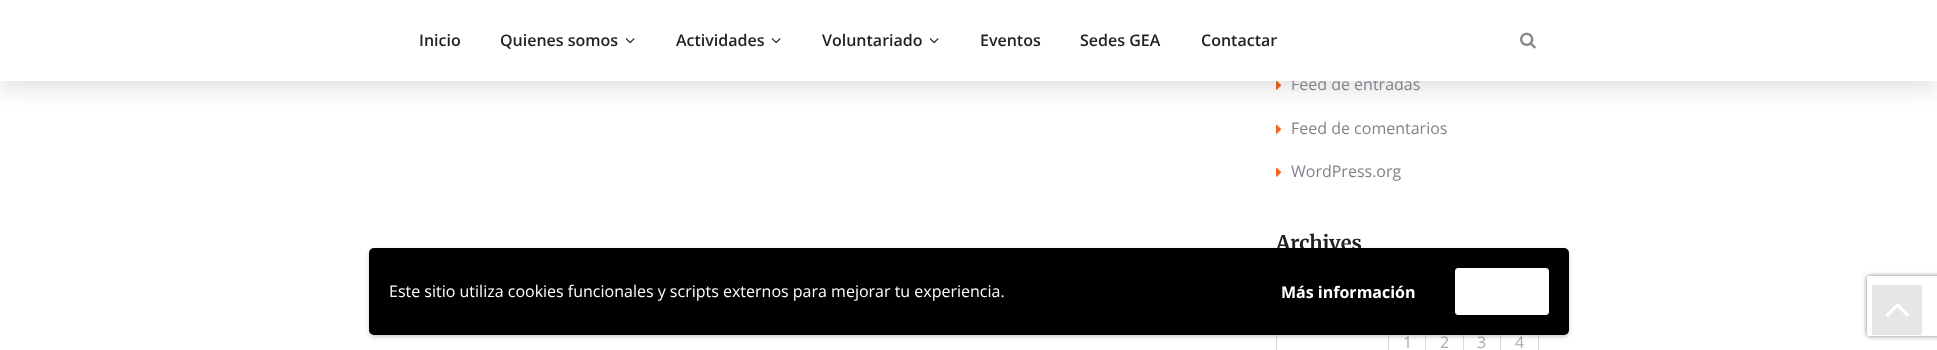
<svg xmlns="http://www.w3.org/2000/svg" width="1937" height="350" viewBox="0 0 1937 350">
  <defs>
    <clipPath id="clip1"><path d="M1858 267H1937V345H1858ZM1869 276H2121C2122 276 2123 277 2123 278V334C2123 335 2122 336 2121 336H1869C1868 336 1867 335 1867 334V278C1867 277 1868 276 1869 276Z" clip-rule="evenodd"/></clipPath>
  </defs>
  <rect width="100%" height="100%" fill="rgb(255,255,255)"/>
  <rect x="1388" y="335" width="1" height="15" fill="rgb(217,217,217)"/>
  <rect x="1425" y="335" width="1" height="15" fill="rgb(217,217,217)"/>
  <rect x="1463" y="335" width="1" height="15" fill="rgb(217,217,217)"/>
  <rect x="1500" y="335" width="1" height="15" fill="rgb(217,217,217)"/>
  <rect x="1276" y="335" width="1" height="15" fill="rgb(217,217,217)"/>
  <rect x="1538" y="335" width="1" height="15" fill="rgb(217,217,217)"/>
  <image x="1276" y="81" width="6" height="9" href="pic3.png"/>
  <rect x="0" y="10" width="1937" height="81" fill="rgba(0,0,0,0.1)" filter="blur(10px)"/>
  <text x="1291" y="90" font-family="Open Sans" font-size="16" fill="rgb(125,132,138)">Feed de entradas</text>
  <rect x="0" y="0" width="1937" height="81" fill="rgb(255,255,255)"/>
  <g font-family="Open Sans" font-size="16" font-weight="600" fill="rgb(34,34,34)">
    <text x="419" y="46">Inicio</text>
    <text x="500" y="46">Quienes somos</text>
  </g>
  <image x="625" y="38" width="10" height="6" href="pic1.png"/>
  <text x="676" y="46" font-family="Open Sans" font-size="16" font-weight="600" fill="rgb(34,34,34)">Actividades</text>
  <image x="771" y="38" width="10" height="6" href="pic1.png"/>
  <text x="822" y="46" font-family="Open Sans" font-size="16" font-weight="600" fill="rgb(34,34,34)">Voluntariado</text>
  <image x="929" y="38" width="10" height="6" href="pic1.png"/>
  <g font-family="Open Sans" font-size="16" font-weight="600" fill="rgb(34,34,34)">
    <text x="980" y="46">Eventos</text>
    <text x="1080" y="46">Sedes GEA</text>
    <text x="1201" y="46">Contactar</text>
  </g>
  <image x="1520" y="32" width="16" height="17" href="pic2.png"/>
  <image x="1276" y="124" width="6" height="10" href="pic4.png"/>
  <text x="1291" y="134" font-family="Open Sans" font-size="16" fill="rgb(125,132,138)">Feed de comentarios</text>
  <image x="1276" y="167" width="6" height="10" href="pic4.png"/>
  <text x="1291" y="177" font-family="Open Sans" font-size="16" fill="rgb(125,132,138)">WordPress.org</text>
  <text x="1276" y="250" font-family="Merriweather" font-size="20" font-weight="bold" fill="rgb(34,34,34)">Archives</text>
  <g font-family="Open Sans" font-size="16" fill="rgb(170,170,170)">
    <text x="1403" y="348">1</text>
    <text x="1440" y="348">2</text>
    <text x="1477" y="348">3</text>
    <text x="1515" y="348">4</text>
  </g>
  <g clip-path="url(#clip1)">
    <rect x="1867" y="276" width="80" height="60" rx="2" fill="rgb(128,128,128)" filter="blur(2.5px)"/>
  </g>
  <rect x="369" y="250" width="1200" height="87" rx="5" fill="rgba(0,0,0,0.2)" filter="blur(2px)"/>
  <rect x="369" y="248" width="1200" height="87" rx="5" fill="rgb(0,0,0)"/>
  <text x="389" y="297" font-family="Open Sans" font-size="16" fill="rgb(255,255,255)">Este sitio utiliza cookies funcionales y scripts externos para mejorar tu experiencia.</text>
  <text x="1281" y="298" font-family="Open Sans" font-size="16" font-weight="bold" fill="rgb(255,255,255)">Más información</text>
  <rect x="1455.5" y="268.5" width="93" height="46" rx="2.5" fill="rgb(255,255,255)" stroke="rgb(255,255,255)"/>
  <rect x="1872" y="285" width="50" height="50" fill="rgb(230,230,230)"/>
  <image x="1886" y="303" width="23" height="14" href="pic5.png"/>
</svg>
